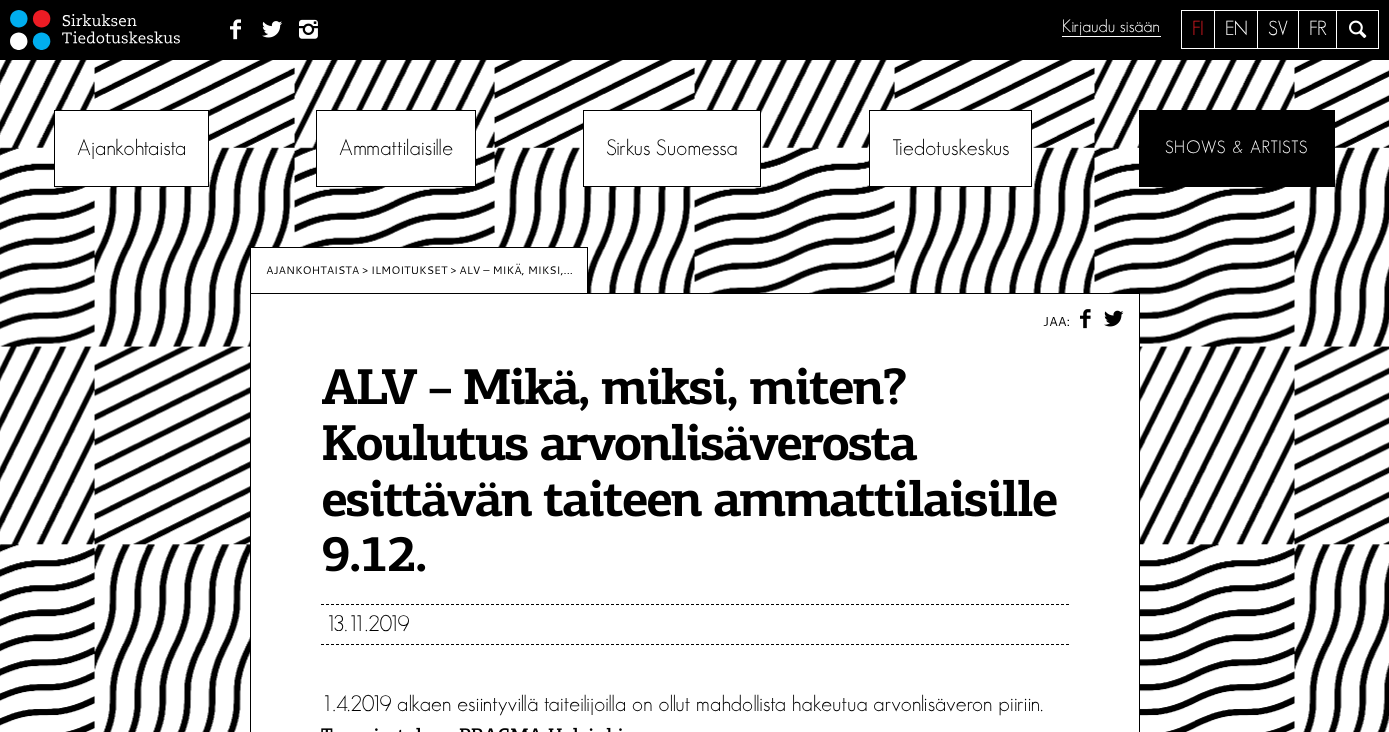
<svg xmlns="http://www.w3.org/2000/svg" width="1389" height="732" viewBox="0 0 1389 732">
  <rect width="100%" height="100%" fill="rgb(255,255,255)"/>
  <image x="0" y="60" width="1389" height="672" href="pic1.png"/>
  <rect x="0" y="0" width="1389" height="60" fill="rgb(0,0,0)"/>
  <image x="10" y="10" width="170" height="40" href="pic2.png"/>
  <image x="230" y="19" width="11" height="21" href="pic3.png"/>
  <image x="262" y="21" width="21" height="17" href="pic4.png"/>
  <image x="299" y="19" width="19" height="20" href="pic5.png"/>
  <text x="1062" y="32" font-family="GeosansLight" font-size="17.5" font-weight="300" fill="rgb(255,255,255)">Kirjaudu sisään</text>
  <rect x="1062" y="36" width="99" height="1" fill="rgb(255,255,255)"/>
  <rect x="1181.5" y="10.5" width="33" height="38" fill="none" stroke="rgb(255,255,255)"/>
  <text x="1192" y="35" font-family="GeosansLight" font-size="20" font-weight="300" fill="rgb(237,28,36)">FI</text>
  <rect x="1215" y="10" width="122" height="1" fill="rgb(255,255,255)"/>
  <rect x="1257" y="10" width="1" height="39" fill="rgb(255,255,255)"/>
  <rect x="1215" y="48" width="43" height="1" fill="rgb(255,255,255)"/>
  <text x="1225" y="35" font-family="GeosansLight" font-size="20" font-weight="300" fill="rgb(255,255,255)">EN</text>
  <rect x="1298" y="10" width="1" height="39" fill="rgb(255,255,255)"/>
  <rect x="1258" y="48" width="41" height="1" fill="rgb(255,255,255)"/>
  <text x="1268" y="35" font-family="GeosansLight" font-size="20" font-weight="300" fill="rgb(255,255,255)">SV</text>
  <rect x="1336" y="10" width="1" height="39" fill="rgb(255,255,255)"/>
  <rect x="1299" y="48" width="38" height="1" fill="rgb(255,255,255)"/>
  <text x="1309" y="35" font-family="GeosansLight" font-size="20" font-weight="300" fill="rgb(255,255,255)">FR</text>
  <rect x="1337" y="10" width="42" height="1" fill="rgb(255,255,255)"/>
  <rect x="1378" y="10" width="1" height="39" fill="rgb(255,255,255)"/>
  <rect x="1337" y="48" width="42" height="1" fill="rgb(255,255,255)"/>
  <image x="1349" y="20" width="18" height="18" href="pic6.png"/>
  <rect x="54.5" y="110.5" width="154" height="76" fill="rgb(255,255,255)" stroke="rgb(0,0,0)"/>
  <text x="77" y="155" font-family="GeosansLight" font-size="22" font-weight="300" fill="rgb(0,0,0)">Ajankohtaista</text>
  <rect x="316.5" y="110.5" width="159" height="76" fill="rgb(255,255,255)" stroke="rgb(0,0,0)"/>
  <text x="339" y="155" font-family="GeosansLight" font-size="22" font-weight="300" fill="rgb(0,0,0)">Ammattilaisille</text>
  <rect x="583.5" y="110.5" width="177" height="76" fill="rgb(255,255,255)" stroke="rgb(0,0,0)"/>
  <text x="606" y="155" font-family="GeosansLight" font-size="22" font-weight="300" fill="rgb(0,0,0)">Sirkus Suomessa</text>
  <rect x="869.5" y="110.5" width="162" height="76" fill="rgb(255,255,255)" stroke="rgb(0,0,0)"/>
  <text x="892" y="155" font-family="GeosansLight" font-size="22" font-weight="300" fill="rgb(0,0,0)">Tiedotuskeskus</text>
  <rect x="1139" y="110" width="196" height="77" fill="rgb(0,0,0)"/>
  <text x="1165" y="153" font-family="GeosansLight" font-size="17.5" font-weight="300" letter-spacing="1.25" fill="rgb(255,255,255)">SHOWS &amp; ARTISTS</text>
  <rect x="251" y="248" width="336" height="45" fill="rgb(255,255,255)"/>
  <rect x="250" y="247" width="338" height="1" fill="rgb(0,0,0)"/>
  <rect x="587" y="247" width="1" height="30" fill="rgb(0,0,0)"/>
  <rect x="250" y="247" width="1" height="47" fill="rgb(0,0,0)"/>
  <text x="266" y="274" font-family="Cantarell" font-size="11" fill="rgb(0,0,0)">AJANKOHTAISTA &gt; ILMOITUKSET &gt; ALV – MIKÄ, MIKSI,...</text>
  <rect x="250.5" y="293.5" width="889" height="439" fill="rgb(255,255,255)" stroke="rgb(0,0,0)"/>
  <text x="1043" y="326" font-family="Cantarell" font-size="13" fill="rgb(0,0,0)">JAA:</text>
  <image x="1080" y="309" width="11" height="20" href="pic7.png"/>
  <image x="1104" y="310" width="20" height="17" href="pic8.png"/>
  <image x="322" y="367" width="584" height="44" href="pic9.png"/>
  <image x="323" y="423" width="595" height="38" href="pic10.png"/>
  <image x="323" y="479" width="734" height="38" href="pic11.png"/>
  <image x="323" y="536" width="103" height="36" href="pic12.png"/>
  <path d="M321 604.5H1069" fill="none" stroke="rgb(0,0,0)" stroke-dasharray="3 2"/>
  <path d="M321 644.5H1069" fill="none" stroke="rgb(0,0,0)" stroke-dasharray="3 2"/>
  <g font-family="GeosansLight" font-size="22" font-weight="300" fill="rgb(0,0,0)">
    <text x="325" y="631">13.11.2019</text>
    <text x="321" y="711">1.4.2019 alkaen esiintyvillä taiteilijoilla on ollut mahdollista hakeutua arvonlisäveron piiriin.</text>
  </g>
  <image x="321" y="727" width="99" height="5" href="pic13.png"/>
  <image x="459" y="727" width="163" height="5" href="pic14.png"/>
</svg>
